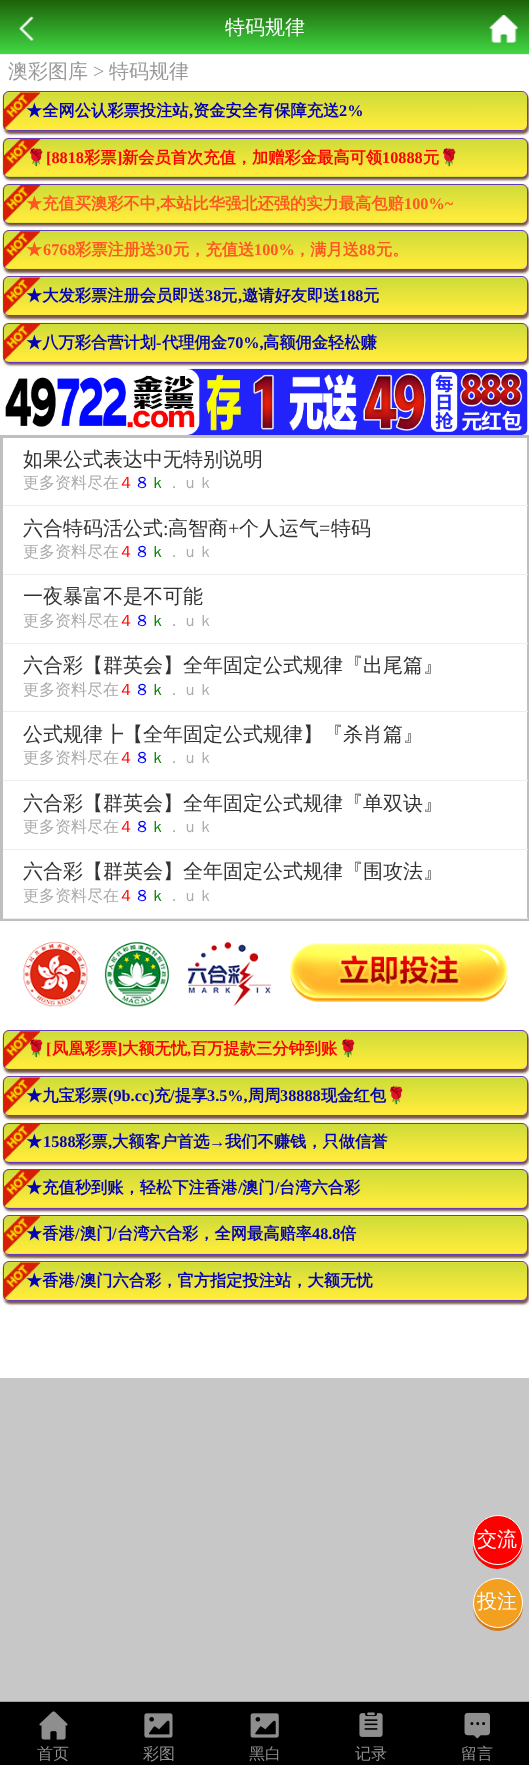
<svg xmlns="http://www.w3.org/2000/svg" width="529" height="1765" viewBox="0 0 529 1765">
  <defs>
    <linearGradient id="g1" gradientUnits="userSpaceOnUse" x1="265" y1="54" x2="265" y2="0"><stop offset="0" stop-color="rgb(65,216,67)"/><stop offset="1" stop-color="rgb(28,97,9)"/></linearGradient>
  </defs>
  <rect width="100%" height="100%" fill="rgb(199,199,199)"/>
  <rect x="0" y="55" width="529" height="1323" fill="rgb(255,255,255)"/>
  <rect x="0" y="0" width="529" height="54" fill="url(#g1)"/>
  <rect x="0" y="54" width="529" height="1" fill="rgb(239,239,239)"/>
  <image x="19" y="16" width="15" height="25" href="pic1.png"/>
  <text x="225" y="34" font-family="WenQuanYi Zen Hei" font-size="20" font-weight="500" fill="rgb(253,253,253)">特码规律</text>
  <image x="489" y="15" width="29" height="28" href="pic2.png"/>
  <text x="8" y="78" font-family="WenQuanYi Zen Hei" font-size="20" font-weight="500" fill="rgb(153,153,153)">澳彩图库</text>
  <text x="93" y="78" font-family="Liberation Serif" font-size="20" fill="rgb(153,153,153)">&gt;</text>
  <text x="109" y="78" font-family="WenQuanYi Zen Hei" font-size="20" font-weight="500" fill="rgb(153,153,153)">特码规律</text>
  <rect x="4" y="94" width="525" height="40" rx="6" fill="rgb(121,85,72)" filter="blur(1px)"/>
  <image x="2" y="91" width="526" height="41" href="pic3.png"/>
  <rect x="3.5" y="91.5" width="524" height="39" rx="5.5" fill="none" stroke="rgb(103,58,183)"/>
  <text x="26" y="116" font-family="WenQuanYi Zen Hei" font-size="16.25" font-weight="bold" fill="rgb(4,4,180)">★全网公认彩票投注站</text>
  <text x="189" y="116" font-family="Liberation Serif" font-size="16.25" font-weight="bold" fill="rgb(4,4,180)">,</text>
  <text x="193" y="116" font-family="WenQuanYi Zen Hei" font-size="16.25" font-weight="bold" fill="rgb(4,4,180)">资金安全有保障充送</text>
  <text x="339" y="116" font-family="Liberation Serif" font-size="16.25" font-weight="bold" fill="rgb(4,4,180)">2%</text>
  <rect x="4" y="140" width="525" height="40" rx="6" fill="rgb(121,85,72)" filter="blur(1px)"/>
  <image x="2" y="137" width="526" height="41" href="pic4.png"/>
  <rect x="3.5" y="138.5" width="524" height="39" rx="5.5" fill="none" stroke="rgb(103,58,183)"/>
  <text x="26" y="163" font-family="Noto Color Emoji" font-size="16.25" font-weight="bold" fill="rgb(255,0,0)">🌹</text>
  <text x="46" y="163" font-family="Liberation Serif" font-size="16.25" font-weight="bold" fill="rgb(255,0,0)">[8818</text>
  <text x="84" y="163" font-family="WenQuanYi Zen Hei" font-size="16.25" font-weight="bold" fill="rgb(255,0,0)">彩票</text>
  <text x="117" y="163" font-family="Liberation Serif" font-size="16.25" font-weight="bold" fill="rgb(255,0,0)">]</text>
  <text x="122" y="163" font-family="WenQuanYi Zen Hei" font-size="16.25" font-weight="bold" fill="rgb(255,0,0)">新会员首次充值，加赠彩金最高可领</text>
  <text x="382" y="163" font-family="Liberation Serif" font-size="16.25" font-weight="bold" fill="rgb(255,0,0)">10888</text>
  <text x="423" y="163" font-family="WenQuanYi Zen Hei" font-size="16.25" font-weight="bold" fill="rgb(255,0,0)">元</text>
  <text x="439" y="163" font-family="Noto Color Emoji" font-size="16.25" font-weight="bold" fill="rgb(255,0,0)">🌹</text>
  <rect x="4" y="186" width="525" height="40" rx="6" fill="rgb(121,85,72)" filter="blur(1px)"/>
  <image x="2" y="183" width="526" height="41" href="pic5.png"/>
  <rect x="3.5" y="184.5" width="524" height="39" rx="5.5" fill="none" stroke="rgb(103,58,183)"/>
  <text x="26" y="209" font-family="WenQuanYi Zen Hei" font-size="16.25" font-weight="bold" fill="rgb(255,87,34)">★充值买澳彩不中</text>
  <text x="156" y="209" font-family="Liberation Serif" font-size="16.25" font-weight="bold" fill="rgb(255,87,34)">,</text>
  <text x="160" y="209" font-family="WenQuanYi Zen Hei" font-size="16.25" font-weight="bold" fill="rgb(255,87,34)">本站比华强北还强的实力最高包赔</text>
  <text x="404" y="209" font-family="Liberation Serif" font-size="16.25" font-weight="bold" fill="rgb(255,87,34)">100%~</text>
  <rect x="4" y="233" width="525" height="40" rx="6" fill="rgb(121,85,72)" filter="blur(1px)"/>
  <image x="2" y="230" width="526" height="40" href="pic6.png"/>
  <rect x="3.5" y="230.5" width="524" height="39" rx="5.5" fill="none" stroke="rgb(103,58,183)"/>
  <text x="26" y="255" font-family="WenQuanYi Zen Hei" font-size="16.25" font-weight="bold" fill="rgb(255,87,34)">★</text>
  <text x="43" y="255" font-family="Liberation Serif" font-size="16.25" font-weight="bold" fill="rgb(255,87,34)">6768</text>
  <text x="75" y="255" font-family="WenQuanYi Zen Hei" font-size="16.25" font-weight="bold" fill="rgb(255,87,34)">彩票注册送</text>
  <text x="156" y="255" font-family="Liberation Serif" font-size="16.25" font-weight="bold" fill="rgb(255,87,34)">30</text>
  <text x="173" y="255" font-family="WenQuanYi Zen Hei" font-size="16.25" font-weight="bold" fill="rgb(255,87,34)">元，充值送</text>
  <text x="254" y="255" font-family="Liberation Serif" font-size="16.25" font-weight="bold" fill="rgb(255,87,34)">100%</text>
  <text x="294" y="255" font-family="WenQuanYi Zen Hei" font-size="16.25" font-weight="bold" fill="rgb(255,87,34)">，满月送</text>
  <text x="359" y="255" font-family="Liberation Serif" font-size="16.25" font-weight="bold" fill="rgb(255,87,34)">88</text>
  <text x="376" y="255" font-family="WenQuanYi Zen Hei" font-size="16.25" font-weight="bold" fill="rgb(255,87,34)">元。</text>
  <rect x="4" y="279" width="525" height="40" rx="6" fill="rgb(121,85,72)" filter="blur(1px)"/>
  <image x="2" y="276" width="526" height="41" href="pic3.png"/>
  <rect x="3.5" y="276.5" width="524" height="39" rx="5.5" fill="none" stroke="rgb(103,58,183)"/>
  <text x="26" y="301" font-family="WenQuanYi Zen Hei" font-size="16.25" font-weight="bold" fill="rgb(4,4,180)">★大发彩票注册会员即送</text>
  <text x="205" y="301" font-family="Liberation Serif" font-size="16.25" font-weight="bold" fill="rgb(4,4,180)">38</text>
  <text x="221" y="301" font-family="WenQuanYi Zen Hei" font-size="16.25" font-weight="bold" fill="rgb(4,4,180)">元</text>
  <text x="238" y="301" font-family="Liberation Serif" font-size="16.25" font-weight="bold" fill="rgb(4,4,180)">,</text>
  <text x="242" y="301" font-family="WenQuanYi Zen Hei" font-size="16.25" font-weight="bold" fill="rgb(4,4,180)">邀请好友即送</text>
  <text x="339" y="301" font-family="Liberation Serif" font-size="16.25" font-weight="bold" fill="rgb(4,4,180)">188</text>
  <text x="363" y="301" font-family="WenQuanYi Zen Hei" font-size="16.25" font-weight="bold" fill="rgb(4,4,180)">元</text>
  <image x="5" y="368" width="523" height="67" href="pic7.png"/>
  <rect x="4" y="325" width="525" height="40" rx="6" fill="rgb(121,85,72)" filter="blur(1px)"/>
  <image x="2" y="322" width="526" height="41" href="pic4.png"/>
  <rect x="3.5" y="323.5" width="524" height="39" rx="5.5" fill="none" stroke="rgb(103,58,183)"/>
  <text x="26" y="348" font-family="WenQuanYi Zen Hei" font-size="16.25" font-weight="bold" fill="rgb(4,4,180)">★八万彩合营计划</text>
  <text x="156" y="348" font-family="Liberation Serif" font-size="16.25" font-weight="bold" fill="rgb(4,4,180)">-</text>
  <text x="162" y="348" font-family="WenQuanYi Zen Hei" font-size="16.25" font-weight="bold" fill="rgb(4,4,180)">代理佣金</text>
  <text x="227" y="348" font-family="Liberation Serif" font-size="16.25" font-weight="bold" fill="rgb(4,4,180)">70%,</text>
  <text x="263" y="348" font-family="WenQuanYi Zen Hei" font-size="16.25" font-weight="bold" fill="rgb(4,4,180)">高额佣金轻松赚</text>
  <rect x="1.5" y="436.5" width="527" height="483" fill="none" stroke="rgb(191,191,191)" stroke-width="3"/>
  <rect x="3" y="505" width="525" height="1" fill="rgb(237,237,237)"/>
  <text x="23" y="466" font-family="WenQuanYi Zen Hei" font-size="20" font-weight="500" fill="rgb(51,51,51)">如果公式表达中无特别说明</text>
  <text x="23" y="488" font-family="WenQuanYi Zen Hei" font-size="16" font-weight="500" fill="rgb(171,171,171)">更多资料尽在</text>
  <text x="118" y="488" font-family="WenQuanYi Zen Hei" font-size="16" font-weight="500" fill="rgb(255,0,0)">４</text>
  <text x="134" y="488" font-family="WenQuanYi Zen Hei" font-size="16" font-weight="500" fill="rgb(0,0,255)">８</text>
  <text x="150" y="488" font-family="WenQuanYi Zen Hei" font-size="16" font-weight="500" fill="rgb(0,128,0)">ｋ</text>
  <text x="166" y="488" font-family="WenQuanYi Zen Hei" font-size="16" font-weight="500" fill="rgb(171,171,171)">．ｕｋ</text>
  <rect x="3" y="574" width="525" height="1" fill="rgb(237,237,237)"/>
  <text x="23" y="535" font-family="WenQuanYi Zen Hei" font-size="20" font-weight="500" fill="rgb(51,51,51)">六合特码活公式</text>
  <text x="163" y="535" font-family="Liberation Serif" font-size="20" fill="rgb(51,51,51)">:</text>
  <text x="168" y="535" font-family="WenQuanYi Zen Hei" font-size="20" font-weight="500" fill="rgb(51,51,51)">高智商</text>
  <text x="228" y="535" font-family="Liberation Serif" font-size="20" fill="rgb(51,51,51)">+</text>
  <text x="239" y="535" font-family="WenQuanYi Zen Hei" font-size="20" font-weight="500" fill="rgb(51,51,51)">个人运气</text>
  <text x="319" y="535" font-family="Liberation Serif" font-size="20" fill="rgb(51,51,51)">=</text>
  <text x="331" y="535" font-family="WenQuanYi Zen Hei" font-size="20" font-weight="500" fill="rgb(51,51,51)">特码</text>
  <text x="23" y="557" font-family="WenQuanYi Zen Hei" font-size="16" font-weight="500" fill="rgb(171,171,171)">更多资料尽在</text>
  <text x="118" y="557" font-family="WenQuanYi Zen Hei" font-size="16" font-weight="500" fill="rgb(255,0,0)">４</text>
  <text x="134" y="557" font-family="WenQuanYi Zen Hei" font-size="16" font-weight="500" fill="rgb(0,0,255)">８</text>
  <text x="150" y="557" font-family="WenQuanYi Zen Hei" font-size="16" font-weight="500" fill="rgb(0,128,0)">ｋ</text>
  <text x="166" y="557" font-family="WenQuanYi Zen Hei" font-size="16" font-weight="500" fill="rgb(171,171,171)">．ｕｋ</text>
  <rect x="3" y="643" width="525" height="1" fill="rgb(237,237,237)"/>
  <text x="23" y="603" font-family="WenQuanYi Zen Hei" font-size="20" font-weight="500" fill="rgb(51,51,51)">一夜暴富不是不可能</text>
  <text x="23" y="626" font-family="WenQuanYi Zen Hei" font-size="16" font-weight="500" fill="rgb(171,171,171)">更多资料尽在</text>
  <text x="118" y="626" font-family="WenQuanYi Zen Hei" font-size="16" font-weight="500" fill="rgb(255,0,0)">４</text>
  <text x="134" y="626" font-family="WenQuanYi Zen Hei" font-size="16" font-weight="500" fill="rgb(0,0,255)">８</text>
  <text x="150" y="626" font-family="WenQuanYi Zen Hei" font-size="16" font-weight="500" fill="rgb(0,128,0)">ｋ</text>
  <text x="166" y="626" font-family="WenQuanYi Zen Hei" font-size="16" font-weight="500" fill="rgb(171,171,171)">．ｕｋ</text>
  <rect x="3" y="711" width="525" height="1" fill="rgb(237,237,237)"/>
  <text x="23" y="672" font-family="WenQuanYi Zen Hei" font-size="20" font-weight="500" fill="rgb(51,51,51)">六合彩【群英会】全年固定公式规律『出尾篇』</text>
  <text x="23" y="695" font-family="WenQuanYi Zen Hei" font-size="16" font-weight="500" fill="rgb(171,171,171)">更多资料尽在</text>
  <text x="118" y="695" font-family="WenQuanYi Zen Hei" font-size="16" font-weight="500" fill="rgb(255,0,0)">４</text>
  <text x="134" y="695" font-family="WenQuanYi Zen Hei" font-size="16" font-weight="500" fill="rgb(0,0,255)">８</text>
  <text x="150" y="695" font-family="WenQuanYi Zen Hei" font-size="16" font-weight="500" fill="rgb(0,128,0)">ｋ</text>
  <text x="166" y="695" font-family="WenQuanYi Zen Hei" font-size="16" font-weight="500" fill="rgb(171,171,171)">．ｕｋ</text>
  <rect x="3" y="780" width="525" height="1" fill="rgb(237,237,237)"/>
  <text x="23" y="741" font-family="WenQuanYi Zen Hei" font-size="20" font-weight="500" fill="rgb(51,51,51)">公式规律┣【全年固定公式规律】『杀肖篇』</text>
  <text x="23" y="763" font-family="WenQuanYi Zen Hei" font-size="16" font-weight="500" fill="rgb(171,171,171)">更多资料尽在</text>
  <text x="118" y="763" font-family="WenQuanYi Zen Hei" font-size="16" font-weight="500" fill="rgb(255,0,0)">４</text>
  <text x="134" y="763" font-family="WenQuanYi Zen Hei" font-size="16" font-weight="500" fill="rgb(0,0,255)">８</text>
  <text x="150" y="763" font-family="WenQuanYi Zen Hei" font-size="16" font-weight="500" fill="rgb(0,128,0)">ｋ</text>
  <text x="166" y="763" font-family="WenQuanYi Zen Hei" font-size="16" font-weight="500" fill="rgb(171,171,171)">．ｕｋ</text>
  <rect x="3" y="849" width="525" height="1" fill="rgb(237,237,237)"/>
  <text x="23" y="810" font-family="WenQuanYi Zen Hei" font-size="20" font-weight="500" fill="rgb(51,51,51)">六合彩【群英会】全年固定公式规律『单双诀』</text>
  <text x="23" y="832" font-family="WenQuanYi Zen Hei" font-size="16" font-weight="500" fill="rgb(171,171,171)">更多资料尽在</text>
  <text x="118" y="832" font-family="WenQuanYi Zen Hei" font-size="16" font-weight="500" fill="rgb(255,0,0)">４</text>
  <text x="134" y="832" font-family="WenQuanYi Zen Hei" font-size="16" font-weight="500" fill="rgb(0,0,255)">８</text>
  <text x="150" y="832" font-family="WenQuanYi Zen Hei" font-size="16" font-weight="500" fill="rgb(0,128,0)">ｋ</text>
  <text x="166" y="832" font-family="WenQuanYi Zen Hei" font-size="16" font-weight="500" fill="rgb(171,171,171)">．ｕｋ</text>
  <rect x="3" y="918" width="525" height="1" fill="rgb(237,237,237)"/>
  <text x="23" y="878" font-family="WenQuanYi Zen Hei" font-size="20" font-weight="500" fill="rgb(51,51,51)">六合彩【群英会】全年固定公式规律『围攻法』</text>
  <text x="23" y="901" font-family="WenQuanYi Zen Hei" font-size="16" font-weight="500" fill="rgb(171,171,171)">更多资料尽在</text>
  <text x="118" y="901" font-family="WenQuanYi Zen Hei" font-size="16" font-weight="500" fill="rgb(255,0,0)">４</text>
  <text x="134" y="901" font-family="WenQuanYi Zen Hei" font-size="16" font-weight="500" fill="rgb(0,0,255)">８</text>
  <text x="150" y="901" font-family="WenQuanYi Zen Hei" font-size="16" font-weight="500" fill="rgb(0,128,0)">ｋ</text>
  <text x="166" y="901" font-family="WenQuanYi Zen Hei" font-size="16" font-weight="500" fill="rgb(171,171,171)">．ｕｋ</text>
  <image x="23" y="942" width="485" height="65" href="pic8.png"/>
  <rect x="4" y="1033" width="525" height="40" rx="6" fill="rgb(121,85,72)" filter="blur(1px)"/>
  <image x="2" y="1030" width="526" height="40" href="pic6.png"/>
  <rect x="3.5" y="1030.5" width="524" height="39" rx="5.5" fill="none" stroke="rgb(103,58,183)"/>
  <text x="26" y="1054" font-family="Noto Color Emoji" font-size="16.25" font-weight="bold" fill="rgb(255,0,0)">🌹</text>
  <text x="46" y="1054" font-family="Liberation Serif" font-size="16.25" font-weight="bold" fill="rgb(255,0,0)">[</text>
  <text x="52" y="1054" font-family="WenQuanYi Zen Hei" font-size="16.25" font-weight="bold" fill="rgb(255,0,0)">凤凰彩票</text>
  <text x="117" y="1054" font-family="Liberation Serif" font-size="16.25" font-weight="bold" fill="rgb(255,0,0)">]</text>
  <text x="122" y="1054" font-family="WenQuanYi Zen Hei" font-size="16.25" font-weight="bold" fill="rgb(255,0,0)">大额无忧</text>
  <text x="187" y="1054" font-family="Liberation Serif" font-size="16.25" font-weight="bold" fill="rgb(255,0,0)">,</text>
  <text x="191" y="1054" font-family="WenQuanYi Zen Hei" font-size="16.25" font-weight="bold" fill="rgb(255,0,0)">百万提款三分钟到账</text>
  <text x="338" y="1054" font-family="Noto Color Emoji" font-size="16.25" font-weight="bold" fill="rgb(255,0,0)">🌹</text>
  <rect x="4" y="1079" width="525" height="40" rx="6" fill="rgb(121,85,72)" filter="blur(1px)"/>
  <image x="2" y="1076" width="526" height="41" href="pic3.png"/>
  <rect x="3.5" y="1076.5" width="524" height="39" rx="5.5" fill="none" stroke="rgb(103,58,183)"/>
  <text x="26" y="1101" font-family="WenQuanYi Zen Hei" font-size="16.25" font-weight="bold" fill="rgb(4,4,180)">★九宝彩票</text>
  <text x="108" y="1101" font-family="Liberation Serif" font-size="16.25" font-weight="bold" fill="rgb(4,4,180)">(9b.cc)</text>
  <text x="154" y="1101" font-family="WenQuanYi Zen Hei" font-size="16.25" font-weight="bold" fill="rgb(4,4,180)">充</text>
  <text x="170" y="1101" font-family="Liberation Serif" font-size="16.25" font-weight="bold" fill="rgb(4,4,180)">/</text>
  <text x="175" y="1101" font-family="WenQuanYi Zen Hei" font-size="16.25" font-weight="bold" fill="rgb(4,4,180)">提享</text>
  <text x="207" y="1101" font-family="Liberation Serif" font-size="16.25" font-weight="bold" fill="rgb(4,4,180)">3.5%,</text>
  <text x="248" y="1101" font-family="WenQuanYi Zen Hei" font-size="16.25" font-weight="bold" fill="rgb(4,4,180)">周周</text>
  <text x="280" y="1101" font-family="Liberation Serif" font-size="16.25" font-weight="bold" fill="rgb(4,4,180)">38888</text>
  <text x="321" y="1101" font-family="WenQuanYi Zen Hei" font-size="16.25" font-weight="bold" fill="rgb(4,4,180)">现金红包</text>
  <text x="386" y="1101" font-family="Noto Color Emoji" font-size="16.25" font-weight="bold" fill="rgb(4,4,180)">🌹</text>
  <rect x="4" y="1125" width="525" height="40" rx="6" fill="rgb(121,85,72)" filter="blur(1px)"/>
  <image x="2" y="1122" width="526" height="41" href="pic4.png"/>
  <rect x="3.5" y="1123.5" width="524" height="39" rx="5.5" fill="none" stroke="rgb(103,58,183)"/>
  <text x="26" y="1147" font-family="WenQuanYi Zen Hei" font-size="16.25" font-weight="bold" fill="rgb(4,4,180)">★</text>
  <text x="43" y="1147" font-family="Liberation Serif" font-size="16.25" font-weight="bold" fill="rgb(4,4,180)">1588</text>
  <text x="75" y="1147" font-family="WenQuanYi Zen Hei" font-size="16.25" font-weight="bold" fill="rgb(4,4,180)">彩票</text>
  <text x="108" y="1147" font-family="Liberation Serif" font-size="16.25" font-weight="bold" fill="rgb(4,4,180)">,</text>
  <text x="112" y="1147" font-family="WenQuanYi Zen Hei" font-size="16.25" font-weight="bold" fill="rgb(4,4,180)">大额客户首选</text>
  <text x="209" y="1147" font-family="Liberation Serif" font-size="16.25" font-weight="bold" fill="rgb(4,4,180)">→</text>
  <text x="225" y="1147" font-family="WenQuanYi Zen Hei" font-size="16.25" font-weight="bold" fill="rgb(4,4,180)">我们不赚钱，只做信誉</text>
  <rect x="4" y="1171" width="525" height="40" rx="6" fill="rgb(121,85,72)" filter="blur(1px)"/>
  <image x="2" y="1168" width="526" height="41" href="pic5.png"/>
  <rect x="3.5" y="1169.5" width="524" height="39" rx="5.5" fill="none" stroke="rgb(103,58,183)"/>
  <text x="26" y="1193" font-family="WenQuanYi Zen Hei" font-size="16.25" font-weight="bold" fill="rgb(4,4,180)">★充值秒到账，轻松下注香港</text>
  <text x="238" y="1193" font-family="Liberation Serif" font-size="16.25" font-weight="bold" fill="rgb(4,4,180)">/</text>
  <text x="242" y="1193" font-family="WenQuanYi Zen Hei" font-size="16.25" font-weight="bold" fill="rgb(4,4,180)">澳门</text>
  <text x="275" y="1193" font-family="Liberation Serif" font-size="16.25" font-weight="bold" fill="rgb(4,4,180)">/</text>
  <text x="279" y="1193" font-family="WenQuanYi Zen Hei" font-size="16.25" font-weight="bold" fill="rgb(4,4,180)">台湾六合彩</text>
  <rect x="4" y="1218" width="525" height="40" rx="6" fill="rgb(121,85,72)" filter="blur(1px)"/>
  <image x="2" y="1215" width="526" height="40" href="pic6.png"/>
  <rect x="3.5" y="1215.5" width="524" height="39" rx="5.5" fill="none" stroke="rgb(103,58,183)"/>
  <text x="26" y="1239" font-family="WenQuanYi Zen Hei" font-size="16.25" font-weight="bold" fill="rgb(4,4,180)">★香港</text>
  <text x="75" y="1239" font-family="Liberation Serif" font-size="16.25" font-weight="bold" fill="rgb(4,4,180)">/</text>
  <text x="80" y="1239" font-family="WenQuanYi Zen Hei" font-size="16.25" font-weight="bold" fill="rgb(4,4,180)">澳门</text>
  <text x="112" y="1239" font-family="Liberation Serif" font-size="16.25" font-weight="bold" fill="rgb(4,4,180)">/</text>
  <text x="117" y="1239" font-family="WenQuanYi Zen Hei" font-size="16.25" font-weight="bold" fill="rgb(4,4,180)">台湾六合彩，全网最高赔率</text>
  <text x="312" y="1239" font-family="Liberation Serif" font-size="16.25" font-weight="bold" fill="rgb(4,4,180)">48.8</text>
  <text x="340" y="1239" font-family="WenQuanYi Zen Hei" font-size="16.25" font-weight="bold" fill="rgb(4,4,180)">倍</text>
  <rect x="4" y="1264" width="525" height="40" rx="6" fill="rgb(121,85,72)" filter="blur(1px)"/>
  <image x="2" y="1261" width="526" height="41" href="pic3.png"/>
  <rect x="3.5" y="1261.5" width="524" height="39" rx="5.5" fill="none" stroke="rgb(103,58,183)"/>
  <text x="26" y="1286" font-family="WenQuanYi Zen Hei" font-size="16.25" font-weight="bold" fill="rgb(4,4,180)">★香港</text>
  <text x="75" y="1286" font-family="Liberation Serif" font-size="16.25" font-weight="bold" fill="rgb(4,4,180)">/</text>
  <text x="80" y="1286" font-family="WenQuanYi Zen Hei" font-size="16.25" font-weight="bold" fill="rgb(4,4,180)">澳门六合彩，官方指定投注站，大额无忧</text>
  <path d="M473 1545C473 1552 476 1558 481 1562C498 1579 527 1562 522 1539C524 1569 479 1575 473 1545Z" fill="rgb(255,0,0)"/>
  <circle cx="498" cy="1540" r="24.5" fill="rgb(255,0,0)" stroke="rgb(255,255,255)"/>
  <text x="477" y="1546" font-family="WenQuanYi Zen Hei" font-size="20" font-weight="500" fill="rgb(253,253,253)">交流</text>
  <path d="M473 1608C474 1614 476 1620 481 1624C499 1641 528 1624 522 1601C525 1631 480 1638 473 1608Z" fill="rgb(213,123,29)"/>
  <circle cx="498" cy="1603" r="24.5" fill="rgb(243,159,32)" stroke="rgb(255,255,255)"/>
  <text x="477" y="1608" font-family="WenQuanYi Zen Hei" font-size="20" font-weight="500" fill="rgb(253,253,253)">投注</text>
  <rect x="0" y="1702" width="529" height="63" fill="rgb(0,0,0)"/>
  <rect x="0" y="1701" width="529" height="1" fill="rgb(159,159,159)"/>
  <image x="39" y="1711" width="29" height="29" href="pic9.png"/>
  <text x="37" y="1759" font-family="WenQuanYi Zen Hei" font-size="16" font-weight="500" fill="rgb(142,142,142)">首页</text>
  <image x="144" y="1713" width="29" height="25" href="pic10.png"/>
  <text x="143" y="1759" font-family="WenQuanYi Zen Hei" font-size="16" font-weight="500" fill="rgb(142,142,142)">彩图</text>
  <image x="250" y="1713" width="29" height="25" href="pic11.png"/>
  <text x="249" y="1759" font-family="WenQuanYi Zen Hei" font-size="16" font-weight="500" fill="rgb(142,142,142)">黑白</text>
  <image x="359" y="1712" width="24" height="25" href="pic12.png"/>
  <text x="355" y="1759" font-family="WenQuanYi Zen Hei" font-size="16" font-weight="500" fill="rgb(142,142,142)">记录</text>
  <image x="464" y="1712" width="26" height="27" href="pic13.png"/>
  <text x="461" y="1759" font-family="WenQuanYi Zen Hei" font-size="16" font-weight="500" fill="rgb(142,142,142)">留言</text>
</svg>
